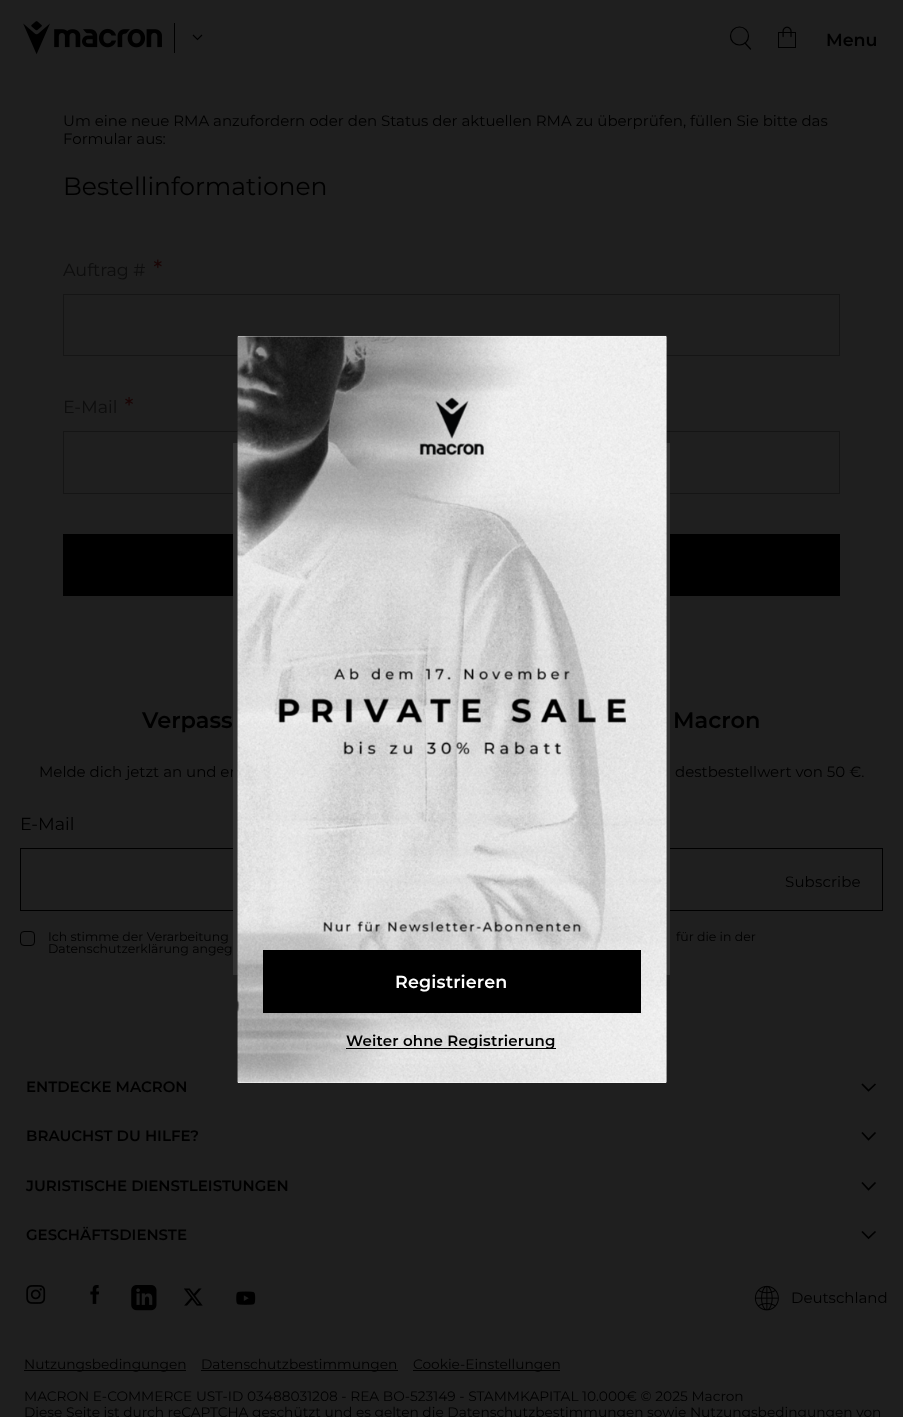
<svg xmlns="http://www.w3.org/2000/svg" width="921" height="1417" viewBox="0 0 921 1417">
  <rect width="100%" height="100%" fill="rgb(255,255,255)"/>
  <rect x="0" y="0" width="903" height="1417" fill="rgb(31,31,31)"/>
  <image x="23" y="21" width="139" height="34" href="pic1.png"/>
  <rect x="174" y="23" width="1" height="30" fill="rgb(0,0,0)"/>
  <path d="M202 35L197.5 39.5L193 35" fill="none" stroke="rgb(0,0,0)" stroke-width="1.1"/>
  <circle cx="739.5" cy="36" r="9" fill="none" stroke="rgb(0,0,0)" stroke-width="1.2"/>
  <path d="M745 43L750.5 49" fill="none" stroke="rgb(0,0,0)" stroke-width="1.2" stroke-linecap="round"/>
  <image x="778" y="26" width="18" height="22" href="pic2.png"/>
  <text x="826" y="46" font-family="Montserrat" font-size="17.5" font-weight="600" fill="rgb(0,0,0)">Menu</text>
  <g font-family="Montserrat" font-size="15" fill="rgb(0,0,0)">
    <text>
      <tspan x="63" y="126">Um eine neue RMA anzufordern oder den Status der aktuellen RMA zu überprüfen, füllen Sie bitte das</tspan>
      <tspan x="63" y="144">Formular aus:</tspan>
    </text>
  </g>
  <text x="63" y="195" font-family="Montserrat" font-size="25" fill="rgb(0,0,0)">Bestellinformationen</text>
  <text x="63" y="276" font-family="Montserrat" font-size="17.5" fill="rgb(13,13,13)">Auftrag #</text>
  <image x="154" y="259" width="8" height="10" href="pic3.png"/>
  <rect x="63.5" y="294.5" width="776" height="61" fill="none" stroke="rgb(21,21,21)"/>
  <text x="63" y="413" font-family="Montserrat" font-size="17.5" fill="rgb(13,13,13)">E-Mail</text>
  <image x="125" y="397" width="8" height="9" href="pic4.png"/>
  <rect x="63.5" y="431.5" width="776" height="62" fill="none" stroke="rgb(21,21,21)"/>
  <rect x="63" y="534" width="777" height="62" fill="rgb(0,0,0)"/>
  <g font-family="Montserrat" font-size="22.5" font-weight="600" fill="rgb(0,0,0)">
    <text x="142" y="728">Verpass</text>
    <text x="673" y="728">Macron</text>
  </g>
  <g font-family="Montserrat" font-size="15" fill="rgb(0,0,0)">
    <text x="39" y="777">Melde dich jetzt an und er</text>
    <text x="675" y="777">destbestellwert von 50 €.</text>
  </g>
  <text x="20" y="830" font-family="Montserrat" font-size="17.5" fill="rgb(0,0,0)">E-Mail</text>
  <rect x="20.5" y="848.5" width="862" height="62" fill="none" stroke="rgb(0,0,0)"/>
  <text x="785" y="887" font-family="Montserrat" font-size="15" letter-spacing="0.15" fill="rgb(0,0,0)">Subscribe</text>
  <rect x="20.5" y="931.5" width="14" height="14" rx="3.5" fill="none" stroke="rgb(0,0,0)"/>
  <g font-family="Montserrat" font-size="12.5" fill="rgb(0,0,0)">
    <text x="48" y="941">Ich stimme der Verarbeitung</text>
    <text x="676" y="941">für die in der</text>
    <text x="48" y="953">Datenschutzerklärung angeg</text>
  </g>
  <text x="26" y="1092" font-family="Montserrat" font-size="15" font-weight="600" fill="rgb(0,0,0)">ENTDECKE MACRON</text>
  <path d="M875.5 1084L868.5 1090.5L862 1084M875.5 1132.5L868.5 1139.5L862 1132.5" fill="none" stroke="rgb(0,0,0)" stroke-width="1.7"/>
  <g font-family="Montserrat" font-size="15" font-weight="600" fill="rgb(0,0,0)">
    <text x="26" y="1141">BRAUCHST DU HILFE?</text>
    <text x="26" y="1191">JURISTISCHE DIENSTLEISTUNGEN</text>
  </g>
  <path d="M875.5 1182.5L868.5 1189.5L862 1182.5M875.5 1231.5L868.5 1238L862 1231.5" fill="none" stroke="rgb(0,0,0)" stroke-width="1.7"/>
  <text x="26" y="1240" font-family="Montserrat" font-size="15" font-weight="600" fill="rgb(0,0,0)">GESCHÄFTSDIENSTE</text>
  <image x="26" y="1285" width="20" height="19" href="pic5.png"/>
  <image x="90" y="1285" width="9" height="19" href="pic6.png"/>
  <image x="131" y="1285" width="26" height="26" href="pic7.png"/>
  <image x="184" y="1288" width="19" height="18" href="pic8.png"/>
  <image x="236" y="1291" width="20" height="14" href="pic9.png"/>
  <image x="754" y="1285" width="25" height="26" href="pic10.png"/>
  <text x="791" y="1303" font-family="Montserrat" font-size="15" fill="rgb(0,0,0)">Deutschland</text>
  <rect x="24" y="1370" width="162" height="1" fill="rgb(0,0,0)"/>
  <text x="24" y="1369" font-family="Montserrat" font-size="13.75" fill="rgb(0,0,0)">Nutzungsbedingungen</text>
  <rect x="201" y="1370" width="197" height="1" fill="rgb(0,0,0)"/>
  <text x="201" y="1369" font-family="Montserrat" font-size="13.75" fill="rgb(0,0,0)">Datenschutzbestimmungen</text>
  <rect x="413" y="1370" width="147" height="1" fill="rgb(0,0,0)"/>
  <g font-family="Montserrat" font-size="13.75" fill="rgb(0,0,0)">
    <text x="413" y="1369">Cookie-Einstellungen</text>
    <text>
      <tspan x="24" y="1401">MACRON E-COMMERCE UST-ID 03488031208 - REA BO-523149 - STAMMKAPITAL 10.000€ © 2025 Macron</tspan>
      <tspan x="24" y="1417">Diese Seite ist durch reCAPTCHA geschützt und es gelten die Datenschutzbestimmungen sowie Nutzungsbedingungen von</tspan>
    </text>
  </g>
  <rect x="233" y="443" width="437" height="532" fill="rgb(51,51,51)"/>
  <rect x="238" y="336" width="428" height="747" fill="rgb(255,255,255)"/>
  <image x="237" y="335" width="430" height="748" href="pic11.png"/>
  <rect x="263" y="950" width="378" height="63" fill="rgb(0,0,0)"/>
  <text x="395" y="988" font-family="Montserrat" font-size="17.5" font-weight="600" letter-spacing="0.15" fill="rgb(255,255,255)">Registrieren</text>
  <rect x="346" y="1048" width="210" height="1" fill="rgb(0,0,0)"/>
  <text x="346" y="1046" font-family="Montserrat" font-size="15" font-weight="600" letter-spacing="0.15" fill="rgb(0,0,0)">Weiter ohne Registrierung</text>
</svg>
